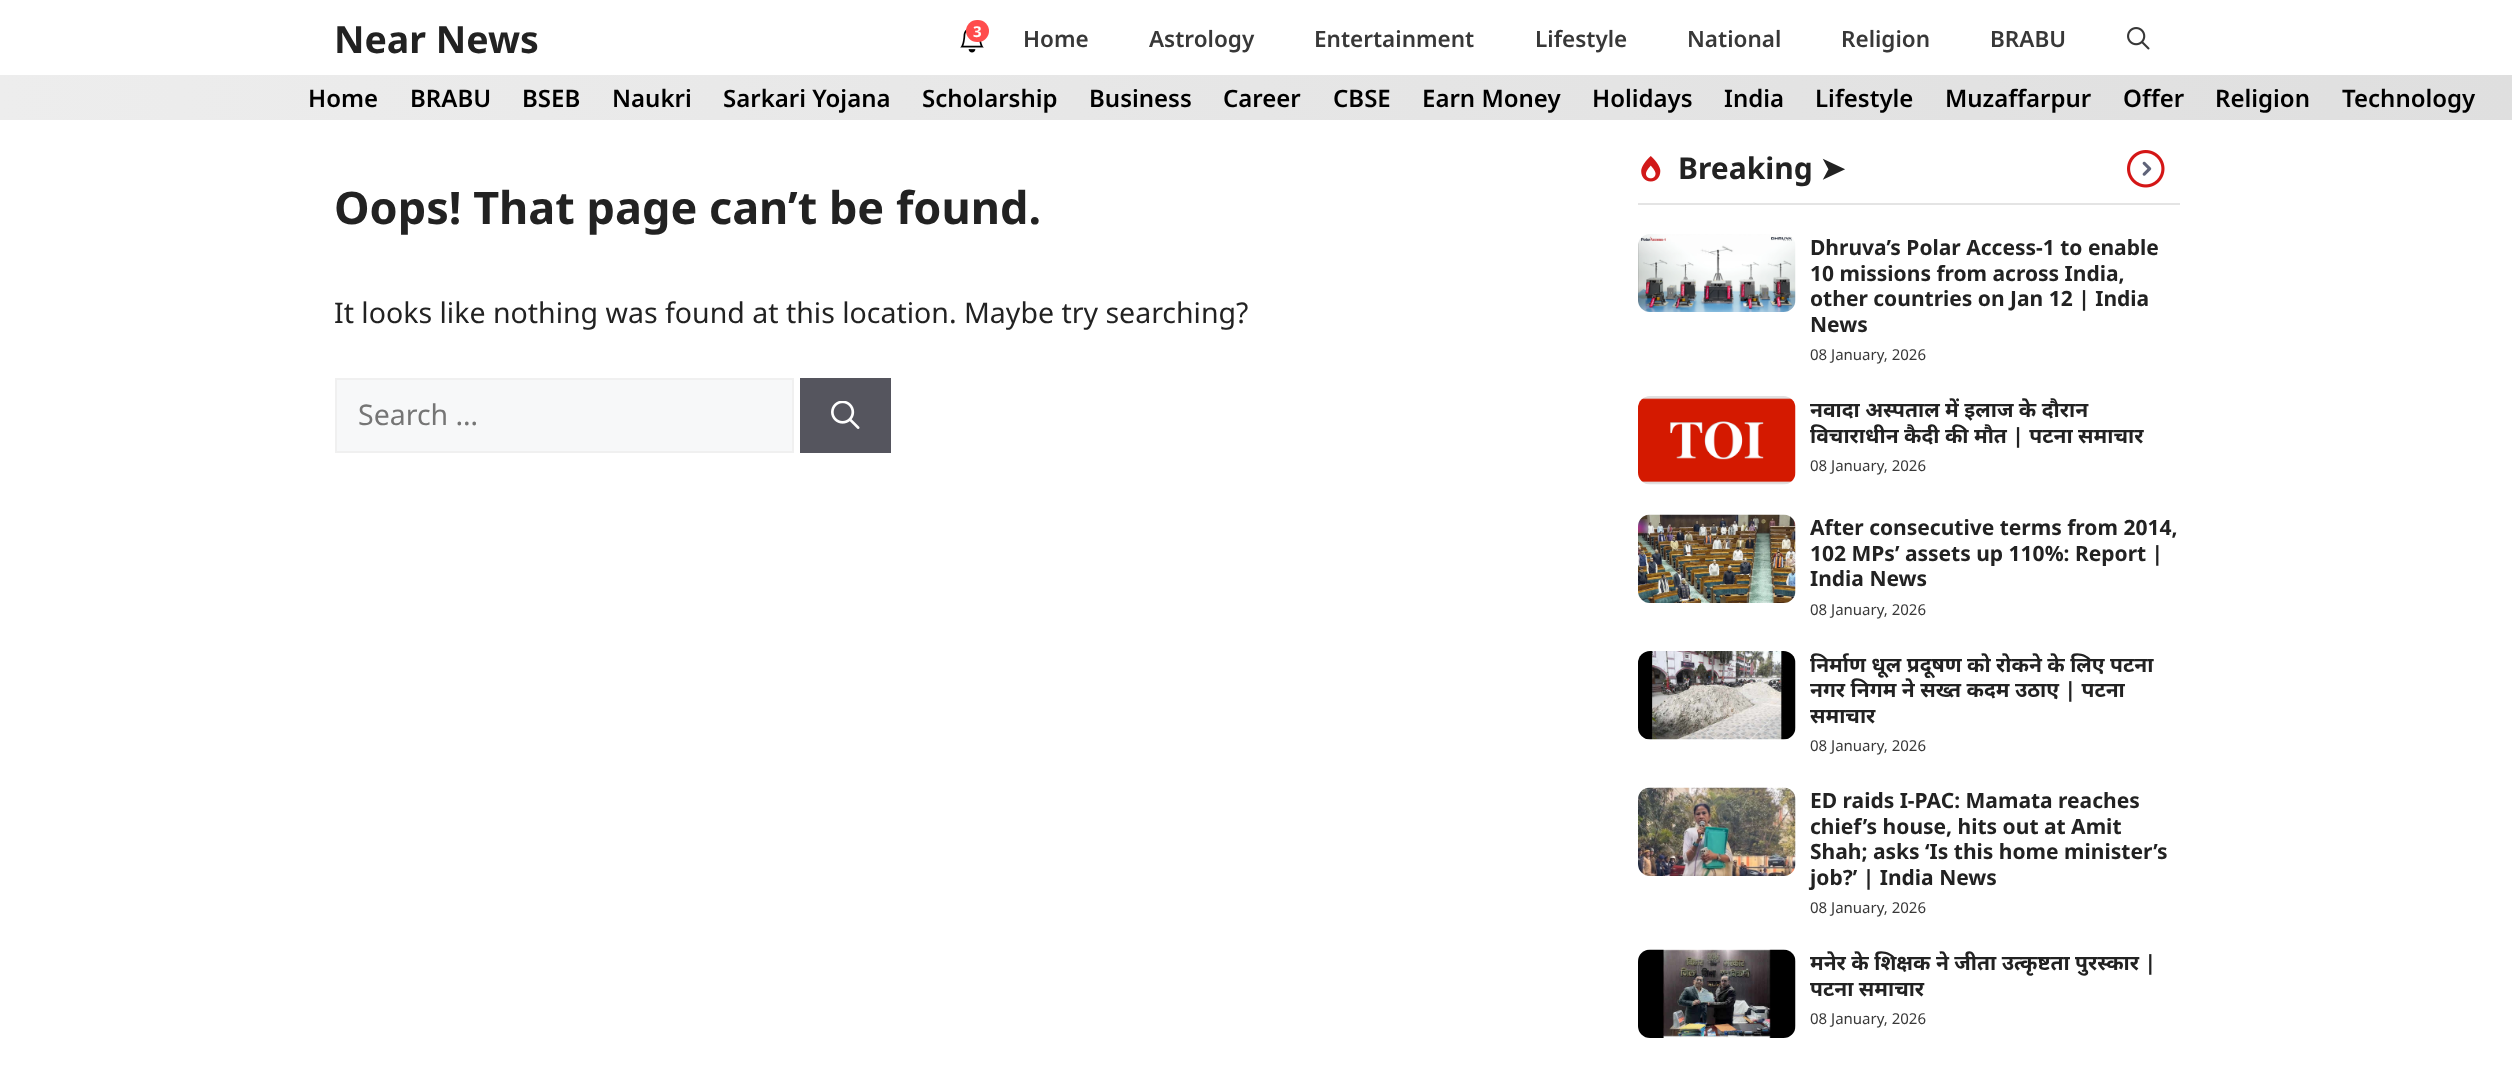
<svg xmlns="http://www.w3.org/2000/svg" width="2512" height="1075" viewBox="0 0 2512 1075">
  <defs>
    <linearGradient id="g1" gradientUnits="userSpaceOnUse" x1="0" y1="98" x2="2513" y2="97"><stop offset="0" stop-color="rgb(237,237,237)"/><stop offset="1" stop-color="rgb(223,223,223)"/></linearGradient>
  </defs>
  <rect width="100%" height="100%" fill="rgb(255,255,255)"/>
  <text x="334" y="53" font-family="Noto Sans" font-size="37.5" font-weight="bold" fill="rgb(34,34,34)">Near News</text>
  <image x="960" y="29" width="24" height="24" href="pic1.png"/>
  <rect x="966" y="20" width="23" height="22" rx="11" fill="rgb(255,76,76)"/>
  <text x="973" y="37" font-family="Noto Sans" font-size="15" font-weight="bold" fill="rgb(255,255,255)">3</text>
  <g font-family="Noto Sans" font-size="22.5" font-weight="600" fill="rgb(56,56,56)">
    <text x="1023" y="47">Home</text>
    <text x="1149" y="47">Astrology</text>
    <text x="1314" y="47">Entertainment</text>
    <text x="1535" y="47">Lifestyle</text>
    <text x="1687" y="47">National</text>
    <text x="1841" y="47">Religion</text>
    <text x="1990" y="47">BRABU</text>
  </g>
  <image x="2127" y="27" width="23" height="23" href="pic2.png"/>
  <rect x="0" y="75" width="2512" height="45" fill="url(#g1)"/>
  <g font-family="Noto Sans" font-size="24" font-weight="600" fill="rgb(0,0,0)">
    <text x="308" y="107">Home</text>
    <text x="410" y="107">BRABU</text>
    <text x="522" y="107">BSEB</text>
    <text x="612" y="107">Naukri</text>
    <text x="723" y="107">Sarkari Yojana</text>
    <text x="922" y="107">Scholarship</text>
    <text x="1089" y="107">Business</text>
    <text x="1223" y="107">Career</text>
    <text x="1333" y="107">CBSE</text>
    <text x="1422" y="107">Earn Money</text>
    <text x="1592" y="107">Holidays</text>
    <text x="1724" y="107">India</text>
    <text x="1815" y="107">Lifestyle</text>
    <text x="1945" y="107">Muzaffarpur</text>
    <text x="2123" y="107">Offer</text>
    <text x="2215" y="107">Religion</text>
    <text x="2342" y="107">Technology</text>
  </g>
  <text x="334" y="224" font-family="Noto Sans" font-size="45" font-weight="bold" fill="rgb(34,34,34)">Oops! That page can’t be found.</text>
  <text x="334" y="323" font-family="Noto Sans" font-size="28.5" fill="rgb(34,34,34)">It looks like nothing was found at this location. Maybe try searching?</text>
  <rect x="336" y="379" width="457" height="73" fill="rgb(247,248,249)" stroke="rgb(240,240,240)" stroke-width="2"/>
  <text x="358" y="425" font-family="Noto Sans" font-size="28.5" fill="rgb(117,117,117)">Search …</text>
  <rect x="800" y="378" width="91" height="75" fill="rgb(85,85,94)"/>
  <image x="831" y="401" width="29" height="28" href="pic3.png"/>
  <rect x="1638" y="203" width="542" height="2" fill="rgb(228,228,228)"/>
  <image x="1641" y="156" width="20" height="26" href="pic4.png"/>
  <text x="1678" y="179" font-family="Noto Sans" font-size="30" font-weight="bold" fill="rgb(34,34,34)">Breaking</text>
  <text x="1820" y="179" font-family="DejaVu Sans" font-size="30" font-weight="bold" fill="rgb(34,34,34)">➤</text>
  <image x="2127" y="150" width="38" height="38" href="pic5.png"/>
  <image x="1638" y="234" width="158" height="78" href="pic6.png"/>
  <g font-family="Noto Sans" font-size="21" font-weight="bold" fill="rgb(34,34,34)">
    <text>
      <tspan x="1810" y="255">Dhruva’s Polar Access-1 to enable</tspan>
      <tspan x="1810" y="281">10 missions from across India,</tspan>
      <tspan x="1810" y="306">other countries on Jan 12 | India</tspan>
      <tspan x="1810" y="332">News</tspan>
    </text>
  </g>
  <text x="1810" y="360" font-family="Noto Sans" font-size="15" fill="rgb(56,56,56)">08 January, 2026</text>
  <image x="1638" y="396" width="158" height="89" href="pic7.png"/>
  <g font-family="Noto Sans" font-size="21" font-weight="bold" fill="rgb(34,34,34)">
    <text>
      <tspan x="1810" y="417">नवादा अस्पताल में इलाज के दौरान</tspan>
      <tspan x="1810" y="443">विचाराधीन कैदी की मौत | पटना समाचार</tspan>
    </text>
  </g>
  <text x="1810" y="471" font-family="Noto Sans" font-size="15" fill="rgb(56,56,56)">08 January, 2026</text>
  <image x="1638" y="514" width="158" height="89" href="pic8.png"/>
  <g font-family="Noto Sans" font-size="21" font-weight="bold" fill="rgb(34,34,34)">
    <text>
      <tspan x="1810" y="535">After consecutive terms from 2014,</tspan>
      <tspan x="1810" y="561">102 MPs’ assets up 110%: Report |</tspan>
      <tspan x="1810" y="586">India News</tspan>
    </text>
  </g>
  <text x="1810" y="615" font-family="Noto Sans" font-size="15" fill="rgb(56,56,56)">08 January, 2026</text>
  <image x="1638" y="651" width="158" height="89" href="pic9.png"/>
  <g font-family="Noto Sans" font-size="21" font-weight="bold" fill="rgb(34,34,34)">
    <text>
      <tspan x="1810" y="672">निर्माण धूल प्रदूषण को रोकने के लिए पटना</tspan>
      <tspan x="1810" y="697">नगर निगम ने सख्त कदम उठाए | पटना</tspan>
      <tspan x="1810" y="723">समाचार</tspan>
    </text>
  </g>
  <text x="1810" y="751" font-family="Noto Sans" font-size="15" fill="rgb(56,56,56)">08 January, 2026</text>
  <image x="1638" y="787" width="158" height="89" href="pic10.png"/>
  <g font-family="Noto Sans" font-size="21" font-weight="bold" fill="rgb(34,34,34)">
    <text>
      <tspan x="1810" y="808">ED raids I-PAC: Mamata reaches</tspan>
      <tspan x="1810" y="834">chief’s house, hits out at Amit</tspan>
      <tspan x="1810" y="859">Shah; asks ‘Is this home minister’s</tspan>
      <tspan x="1810" y="885">job?’ | India News</tspan>
    </text>
  </g>
  <text x="1810" y="913" font-family="Noto Sans" font-size="15" fill="rgb(56,56,56)">08 January, 2026</text>
  <image x="1638" y="949" width="158" height="89" href="pic11.png"/>
  <g font-family="Noto Sans" font-size="21" font-weight="bold" fill="rgb(34,34,34)">
    <text>
      <tspan x="1810" y="970">मनेर के शिक्षक ने जीता उत्कृष्टता पुरस्कार |</tspan>
      <tspan x="1810" y="996">पटना समाचार</tspan>
    </text>
  </g>
  <text x="1810" y="1024" font-family="Noto Sans" font-size="15" fill="rgb(56,56,56)">08 January, 2026</text>
</svg>
